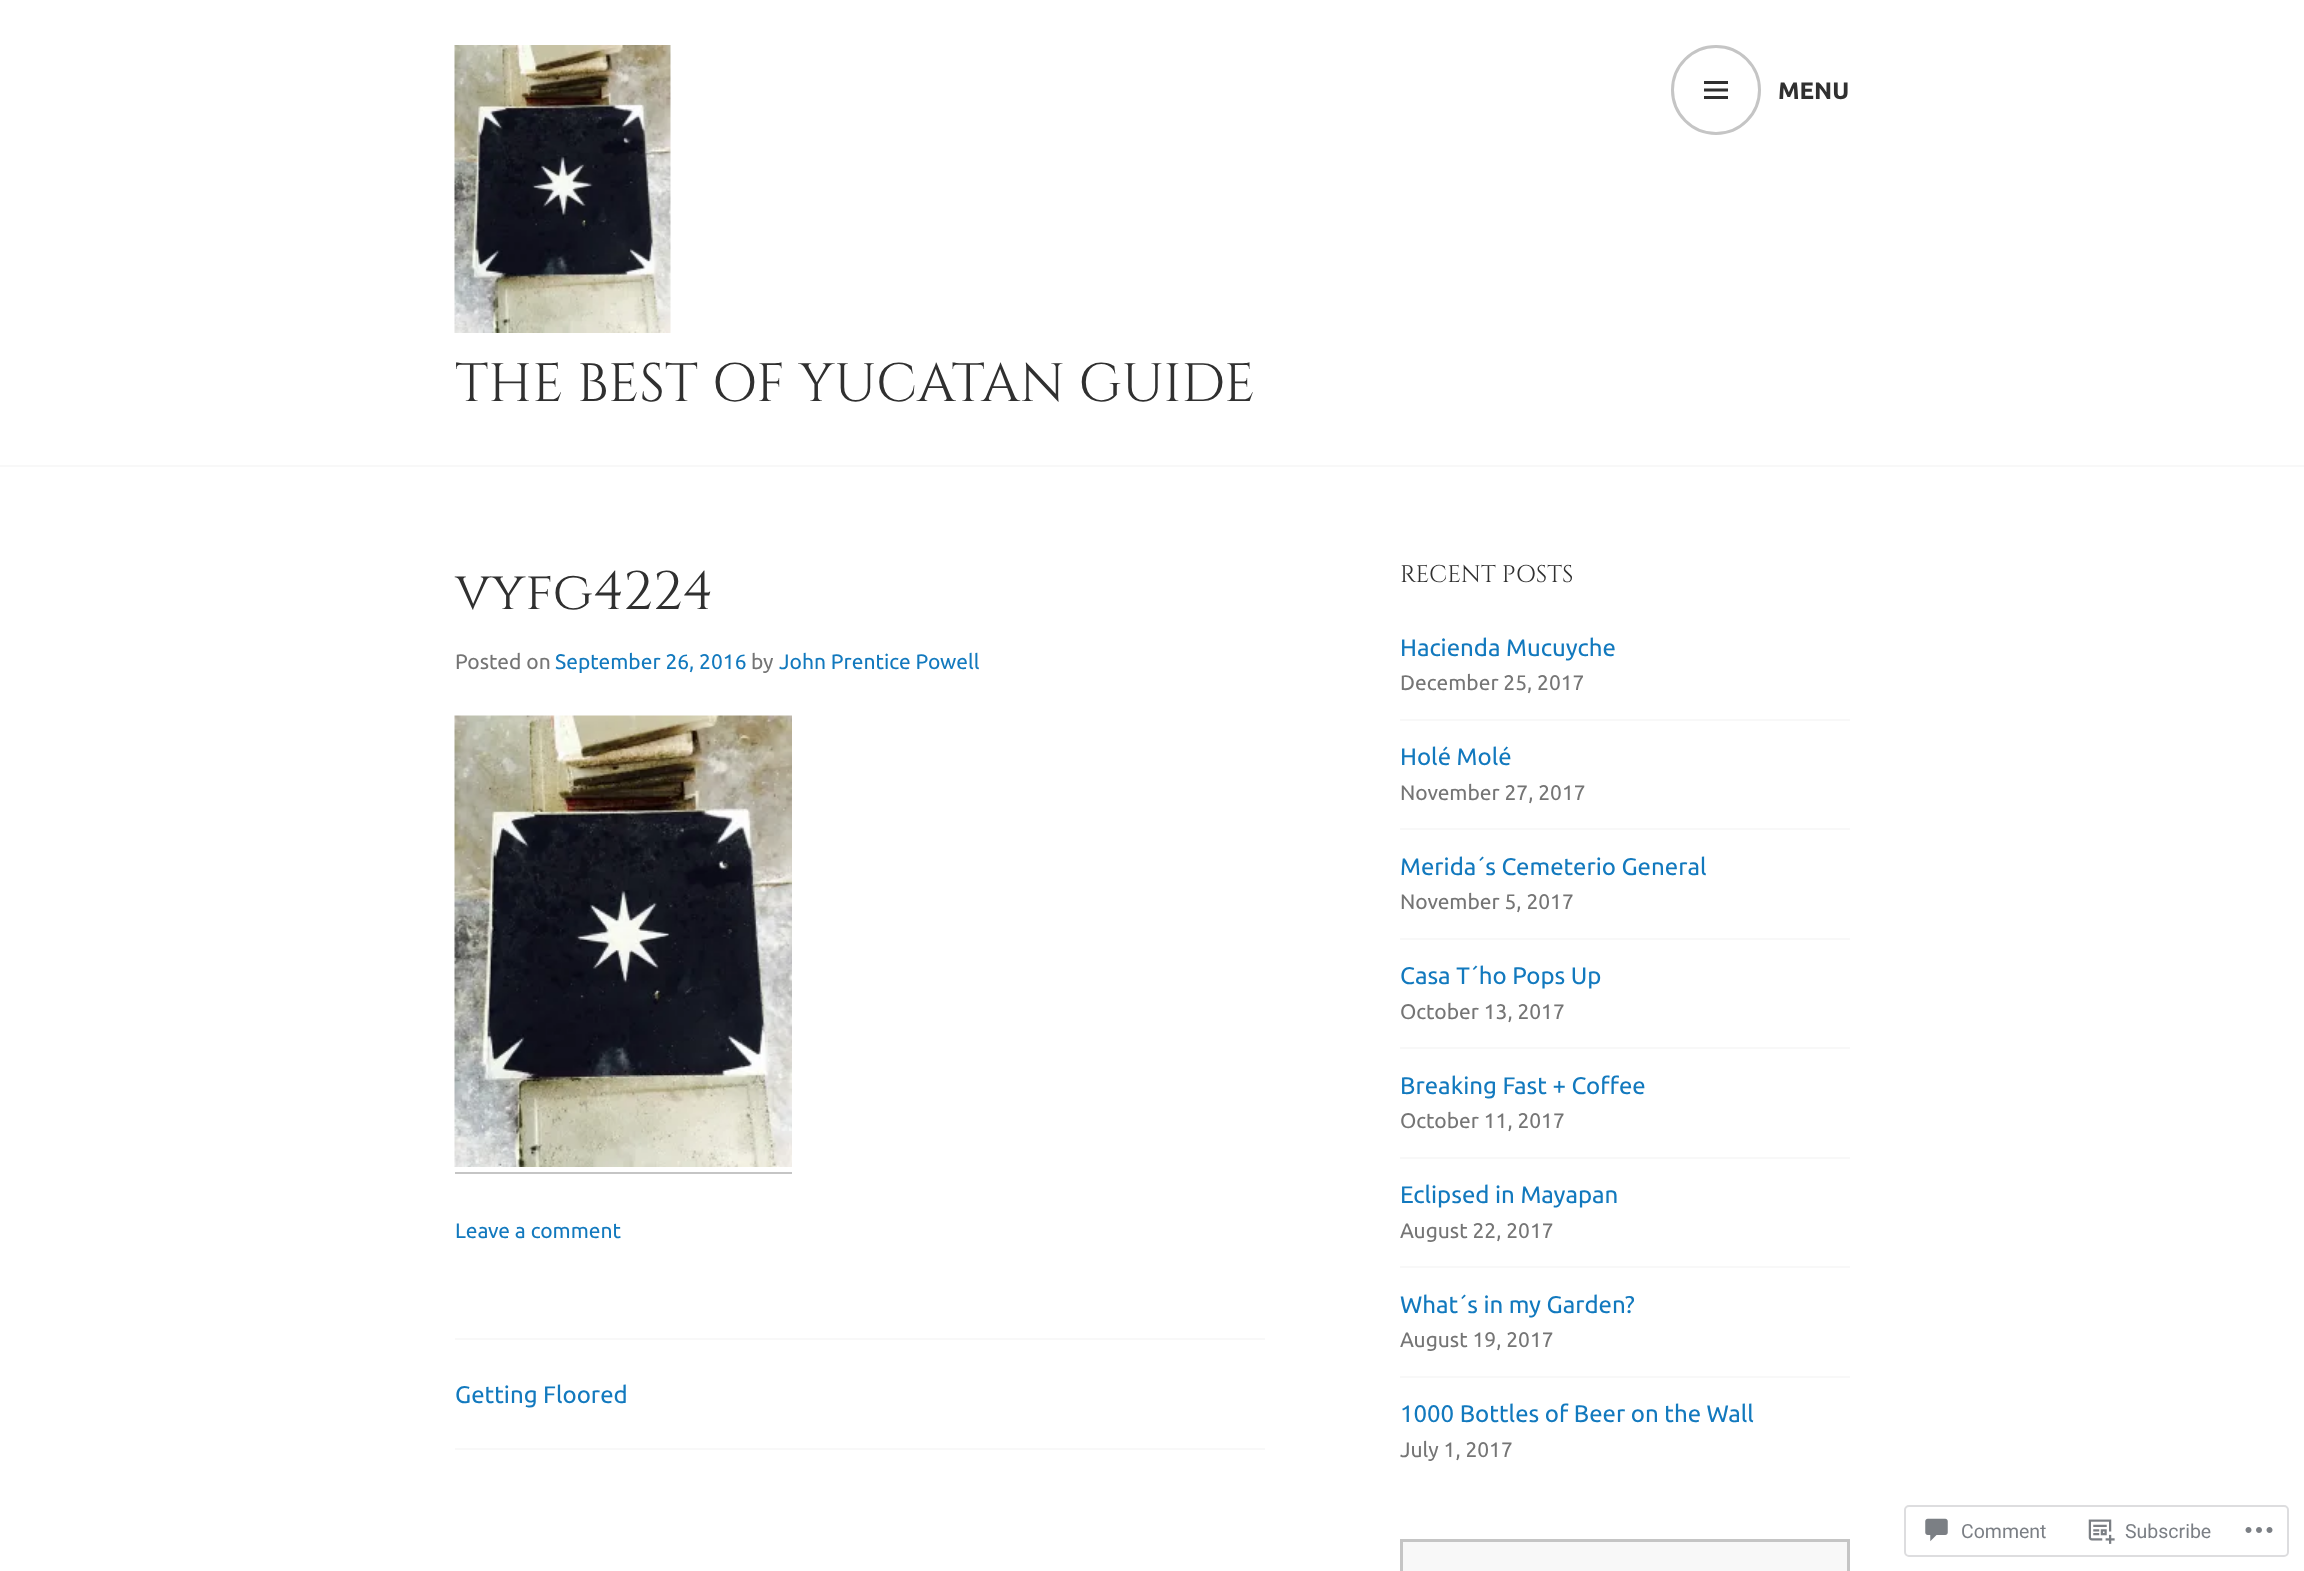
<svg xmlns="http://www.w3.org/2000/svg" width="2304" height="1571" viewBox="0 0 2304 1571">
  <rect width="100%" height="100%" fill="rgb(255,255,255)"/>
  <rect x="0" y="465" width="2304" height="2" fill="rgb(248,248,248)"/>
  <circle cx="1716" cy="90" r="43.5" fill="none" stroke="rgb(197,197,197)" stroke-width="3"/>
  <image x="1704" y="81" width="24" height="18" href="pic1.png"/>
  <text x="1778" y="99" font-family="Ubuntu" font-size="24" font-weight="bold" fill="rgb(48,48,48)">MENU</text>
  <image x="454" y="45" width="217" height="288" href="pic2.png"/>
  <g font-family="Cinzel" font-size="54" fill="rgb(48,48,48)">
    <text x="455" y="401">THE BEST OF YUCATAN GUIDE</text>
    <text x="455" y="609">vyfg4224</text>
  </g>
  <text x="455" y="669" font-family="Ubuntu" font-size="21" fill="rgb(117,117,117)">Posted on</text>
  <text x="555" y="669" font-family="Ubuntu" font-size="21" fill="rgb(18,121,190)">September 26, 2016</text>
  <text x="751" y="669" font-family="Ubuntu" font-size="21" fill="rgb(117,117,117)">by</text>
  <text x="779" y="669" font-family="Ubuntu" font-size="21" fill="rgb(18,121,190)">John Prentice Powell</text>
  <image x="454" y="715" width="338" height="452" href="pic3.png"/>
  <rect x="455" y="1172" width="337" height="2" fill="rgb(197,197,197)"/>
  <text x="455" y="1238" font-family="Ubuntu" font-size="21" fill="rgb(18,121,190)">Leave a comment</text>
  <rect x="455" y="1338" width="810" height="2" fill="rgb(248,248,248)"/>
  <rect x="455" y="1448" width="810" height="2" fill="rgb(248,248,248)"/>
  <text x="455" y="1403" font-family="Ubuntu" font-size="24" fill="rgb(18,121,190)">Getting Floored</text>
  <text x="1400" y="582" font-family="Cinzel" font-size="24" fill="rgb(48,48,48)">RECENT POSTS</text>
  <text x="1400" y="656" font-family="Ubuntu" font-size="24" fill="rgb(18,121,190)">Hacienda Mucuyche</text>
  <text x="1400" y="690" font-family="Ubuntu" font-size="21" fill="rgb(117,117,117)">December 25, 2017</text>
  <rect x="1400" y="719" width="450" height="2" fill="rgb(248,248,248)"/>
  <text x="1400" y="765" font-family="Ubuntu" font-size="24" fill="rgb(18,121,190)">Holé Molé</text>
  <text x="1400" y="800" font-family="Ubuntu" font-size="21" fill="rgb(117,117,117)">November 27, 2017</text>
  <rect x="1400" y="828" width="450" height="2" fill="rgb(248,248,248)"/>
  <text x="1400" y="875" font-family="Ubuntu" font-size="24" fill="rgb(18,121,190)">Merida´s Cemeterio General</text>
  <text x="1400" y="909" font-family="Ubuntu" font-size="21" fill="rgb(117,117,117)">November 5, 2017</text>
  <rect x="1400" y="938" width="450" height="2" fill="rgb(248,248,248)"/>
  <text x="1400" y="984" font-family="Ubuntu" font-size="24" fill="rgb(18,121,190)">Casa T´ho Pops Up</text>
  <text x="1400" y="1019" font-family="Ubuntu" font-size="21" fill="rgb(117,117,117)">October 13, 2017</text>
  <rect x="1400" y="1047" width="450" height="2" fill="rgb(248,248,248)"/>
  <text x="1400" y="1094" font-family="Ubuntu" font-size="24" fill="rgb(18,121,190)">Breaking Fast + Coffee</text>
  <text x="1400" y="1128" font-family="Ubuntu" font-size="21" fill="rgb(117,117,117)">October 11, 2017</text>
  <rect x="1400" y="1157" width="450" height="2" fill="rgb(248,248,248)"/>
  <text x="1400" y="1203" font-family="Ubuntu" font-size="24" fill="rgb(18,121,190)">Eclipsed in Mayapan</text>
  <text x="1400" y="1238" font-family="Ubuntu" font-size="21" fill="rgb(117,117,117)">August 22, 2017</text>
  <rect x="1400" y="1266" width="450" height="2" fill="rgb(248,248,248)"/>
  <text x="1400" y="1313" font-family="Ubuntu" font-size="24" fill="rgb(18,121,190)">What´s in my Garden?</text>
  <text x="1400" y="1347" font-family="Ubuntu" font-size="21" fill="rgb(117,117,117)">August 19, 2017</text>
  <rect x="1400" y="1376" width="450" height="2" fill="rgb(248,248,248)"/>
  <text x="1400" y="1422" font-family="Ubuntu" font-size="24" fill="rgb(18,121,190)">1000 Bottles of Beer on the Wall</text>
  <text x="1400" y="1457" font-family="Ubuntu" font-size="21" fill="rgb(117,117,117)">July 1, 2017</text>
  <rect x="1401.5" y="1540.5" width="447" height="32" fill="rgb(248,248,248)" stroke="rgb(197,197,197)" stroke-width="3"/>
  <rect x="1905" y="1506" width="383" height="50" rx="4" fill="none" stroke="rgb(221,221,223)" stroke-width="2"/>
  <image x="1925" y="1518" width="23" height="24" href="pic4.png"/>
  <text x="1961" y="1538" font-family="Roboto" font-size="19.5" fill="rgb(123,127,133)">Comment</text>
  <image x="2088" y="1519" width="27" height="25" href="pic5.png"/>
  <text x="2125" y="1538" font-family="Roboto" font-size="19.5" fill="rgb(123,127,133)">Subscribe</text>
  <image x="2245" y="1527" width="28" height="6" href="pic6.png"/>
</svg>
